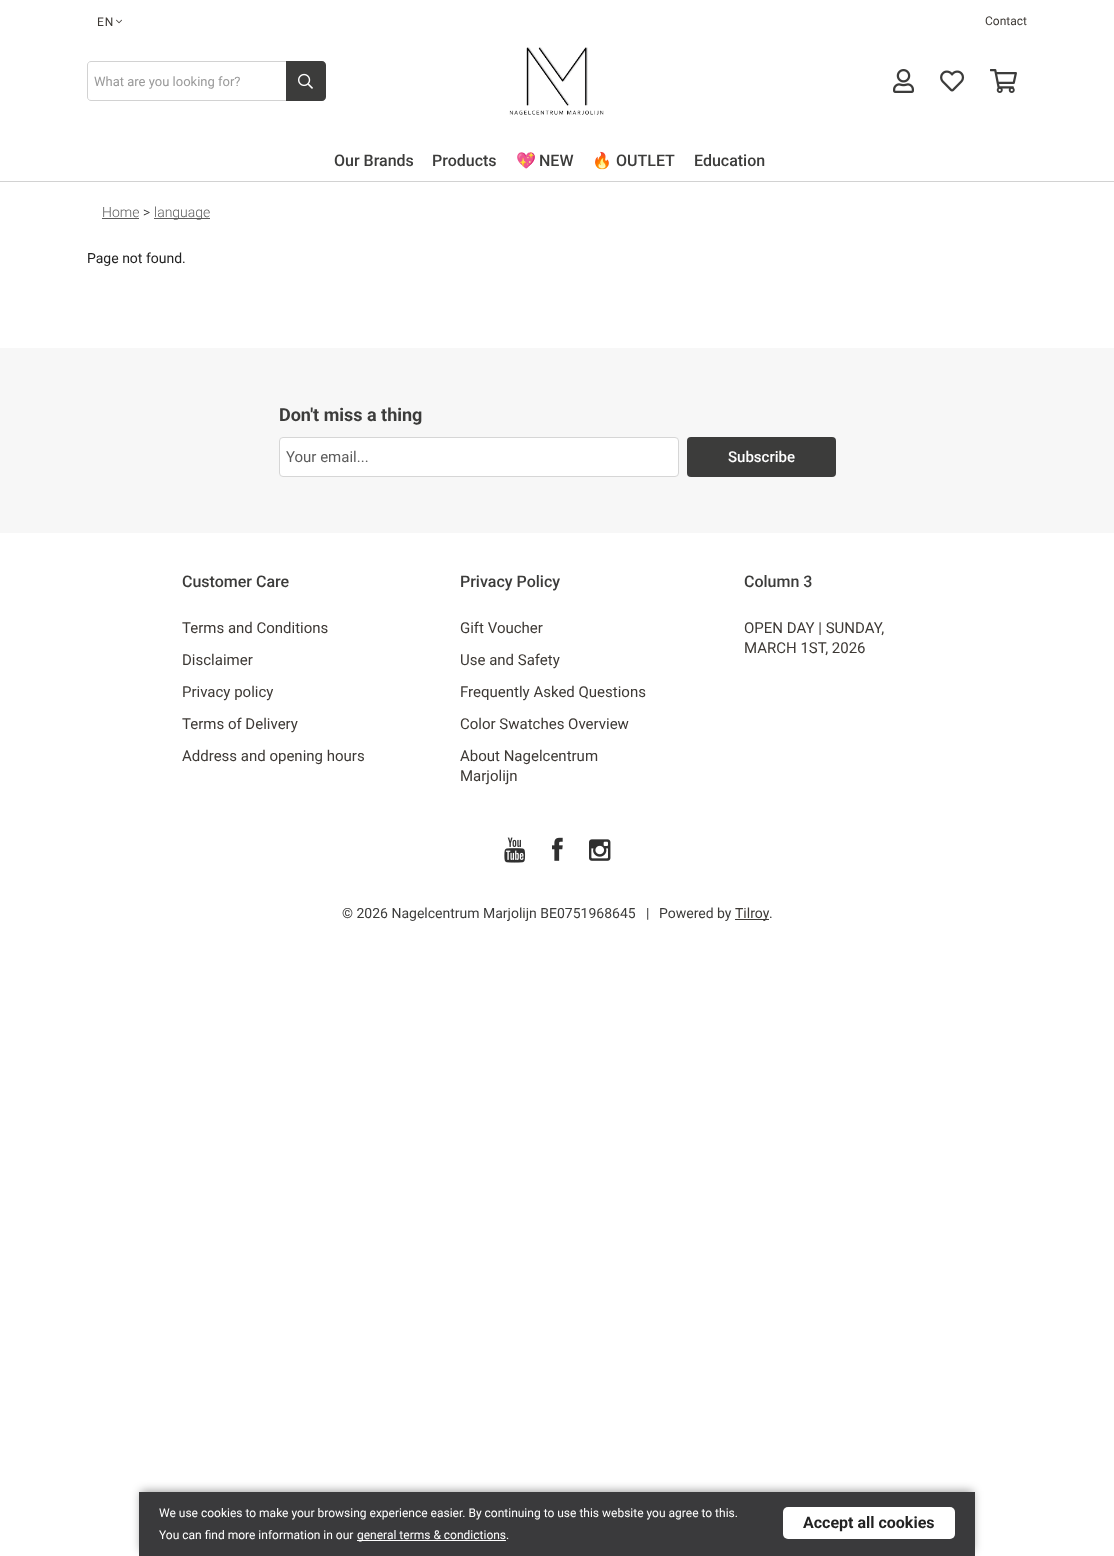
<svg xmlns="http://www.w3.org/2000/svg" width="1114" height="1556" viewBox="0 0 1114 1556">
  <rect width="100%" height="100%" fill="rgb(255,255,255)"/>
  <text x="97" y="26" font-family="Roboto" font-size="12" letter-spacing="1" fill="rgb(61,57,53)">EN</text>
  <image x="116" y="19" width="6" height="5" href="pic1.png"/>
  <text x="985" y="25" font-family="Roboto" font-size="12" fill="rgb(61,57,53)">Contact</text>
  <path d="M91 61.5H286.5V100.5H91C89 100.5 87.5 99 87.5 97V65C87.5 63 89 61.5 91 61.5Z" fill="none" stroke="rgb(210,210,210)"/>
  <text x="94" y="86" font-family="Roboto" font-size="13" fill="rgb(153,153,153)">What are you looking for?</text>
  <path d="M286 61H322C324 61 326 63 326 65V97C326 99 324 101 322 101H286Z" fill="rgb(60,60,59)"/>
  <image x="298" y="73" width="15" height="16" href="pic2.png"/>
  <image x="509" y="47" width="95" height="68" href="pic3.png"/>
  <image x="893" y="69" width="21" height="24" href="pic4.png"/>
  <image x="940" y="70" width="25" height="22" href="pic5.png"/>
  <image x="990" y="69" width="27" height="24" href="pic6.png"/>
  <g font-family="Roboto" font-size="16" font-weight="500" fill="rgb(60,60,59)">
    <text x="334" y="166">Our Brands</text>
    <text x="432" y="166">Products</text>
  </g>
  <text x="516" y="166" font-family="Noto Color Emoji" font-size="16" fill="rgb(60,60,59)">💖</text>
  <text x="539" y="166" font-family="Roboto" font-size="16" font-weight="500" fill="rgb(60,60,59)">NEW</text>
  <text x="592" y="166" font-family="Noto Color Emoji" font-size="16" fill="rgb(60,60,59)">🔥</text>
  <g font-family="Roboto" font-size="16" font-weight="500" fill="rgb(60,60,59)">
    <text x="616" y="166">OUTLET</text>
    <text x="694" y="166">Education</text>
  </g>
  <rect x="0" y="181" width="1114" height="1" fill="rgb(210,210,210)"/>
  <text x="102" y="217" font-family="Roboto" font-size="14" font-weight="300" fill="rgb(92,92,92)">Home</text>
  <rect x="102" y="218" width="37" height="1" fill="rgb(92,92,92)"/>
  <text x="143" y="217" font-family="Roboto" font-size="14" font-weight="300" fill="rgb(34,34,34)">&gt;</text>
  <rect x="154" y="218" width="56" height="1" fill="rgb(92,92,92)"/>
  <text x="154" y="217" font-family="Roboto" font-size="14" font-weight="300" fill="rgb(92,92,92)">language</text>
  <text x="87" y="263" font-family="Roboto" font-size="14" fill="rgb(34,34,34)">Page not found.</text>
  <rect x="0" y="348" width="1114" height="185" fill="rgb(247,247,247)"/>
  <text x="279" y="421" font-family="Roboto" font-size="18" font-weight="bold" fill="rgb(60,60,59)">Don't miss a thing</text>
  <rect x="279.5" y="437.5" width="399" height="39" rx="3.5" fill="rgb(255,255,255)" stroke="rgb(214,214,214)"/>
  <text x="286" y="462" font-family="Roboto" font-size="15" fill="rgb(92,92,92)">Your email...</text>
  <rect x="687" y="437" width="149" height="40" rx="4" fill="rgb(60,60,59)"/>
  <text x="728" y="462" font-family="Roboto" font-size="15" font-weight="500" fill="rgb(255,255,255)">Subscribe</text>
  <text x="182" y="587" font-family="Roboto" font-size="16" font-weight="500" fill="rgb(60,60,59)">Customer Care</text>
  <g font-family="Roboto" font-size="15" fill="rgb(61,57,53)">
    <text x="182" y="633">Terms and Conditions</text>
    <text x="182" y="665">Disclaimer</text>
    <text x="182" y="697">Privacy policy</text>
    <text x="182" y="729">Terms of Delivery</text>
    <text x="182" y="761">Address and opening hours</text>
  </g>
  <text x="460" y="587" font-family="Roboto" font-size="16" font-weight="500" fill="rgb(60,60,59)">Privacy Policy</text>
  <g font-family="Roboto" font-size="15" fill="rgb(61,57,53)">
    <text x="460" y="633">Gift Voucher</text>
    <text x="460" y="665">Use and Safety</text>
    <text x="460" y="697">Frequently Asked Questions</text>
    <text x="460" y="729">Color Swatches Overview</text>
    <text>
      <tspan x="460" y="761">About Nagelcentrum</tspan>
      <tspan x="460" y="781">Marjolijn</tspan>
    </text>
  </g>
  <text x="744" y="587" font-family="Roboto" font-size="16" font-weight="500" fill="rgb(60,60,59)">Column 3</text>
  <g font-family="Roboto" font-size="15" fill="rgb(61,57,53)">
    <text>
      <tspan x="744" y="633">OPEN DAY | SUNDAY,</tspan>
      <tspan x="744" y="653">MARCH 1ST, 2026</tspan>
    </text>
  </g>
  <image x="504" y="837" width="22" height="26" href="pic7.png"/>
  <image x="552" y="837" width="11" height="24" href="pic8.png"/>
  <image x="589" y="839" width="22" height="22" href="pic9.png"/>
  <g font-family="Roboto" font-size="14" fill="rgb(60,60,59)">
    <text x="342" y="918">© 2026 Nagelcentrum Marjolijn BE0751968645</text>
    <text x="646" y="918">|</text>
    <text x="659" y="918">Powered by</text>
  </g>
  <rect x="735" y="919" width="34" height="1" fill="rgb(61,57,53)"/>
  <text x="735" y="918" font-family="Roboto" font-size="14" fill="rgb(61,57,53)">Tilroy</text>
  <text x="769" y="918" font-family="Roboto" font-size="14" fill="rgb(60,60,59)">.</text>
  <rect x="141" y="1491" width="832" height="60" fill="rgba(0,0,0,0.4)" filter="blur(5px)"/>
  <rect x="139" y="1492" width="836" height="64" fill="rgb(58,58,60)"/>
  <g font-family="Roboto" font-size="12" fill="rgb(255,255,255)">
    <text>
      <tspan x="159" y="1517">We use cookies to make your browsing experience easier. By continuing to use this website you agree to this.</tspan>
      <tspan x="159" y="1539">You can find more information in our</tspan>
    </text>
  </g>
  <rect x="357" y="1540" width="149" height="1" fill="rgb(255,255,255)"/>
  <text x="357" y="1539" font-family="Roboto" font-size="12" fill="rgb(255,255,255)">general terms &amp; condictions.</text>
  <rect x="783" y="1507" width="172" height="32" rx="5" fill="rgb(255,255,255)"/>
  <text x="803" y="1528" font-family="Roboto" font-size="16" font-weight="bold" fill="rgb(34,34,34)">Accept all cookies</text>
</svg>
